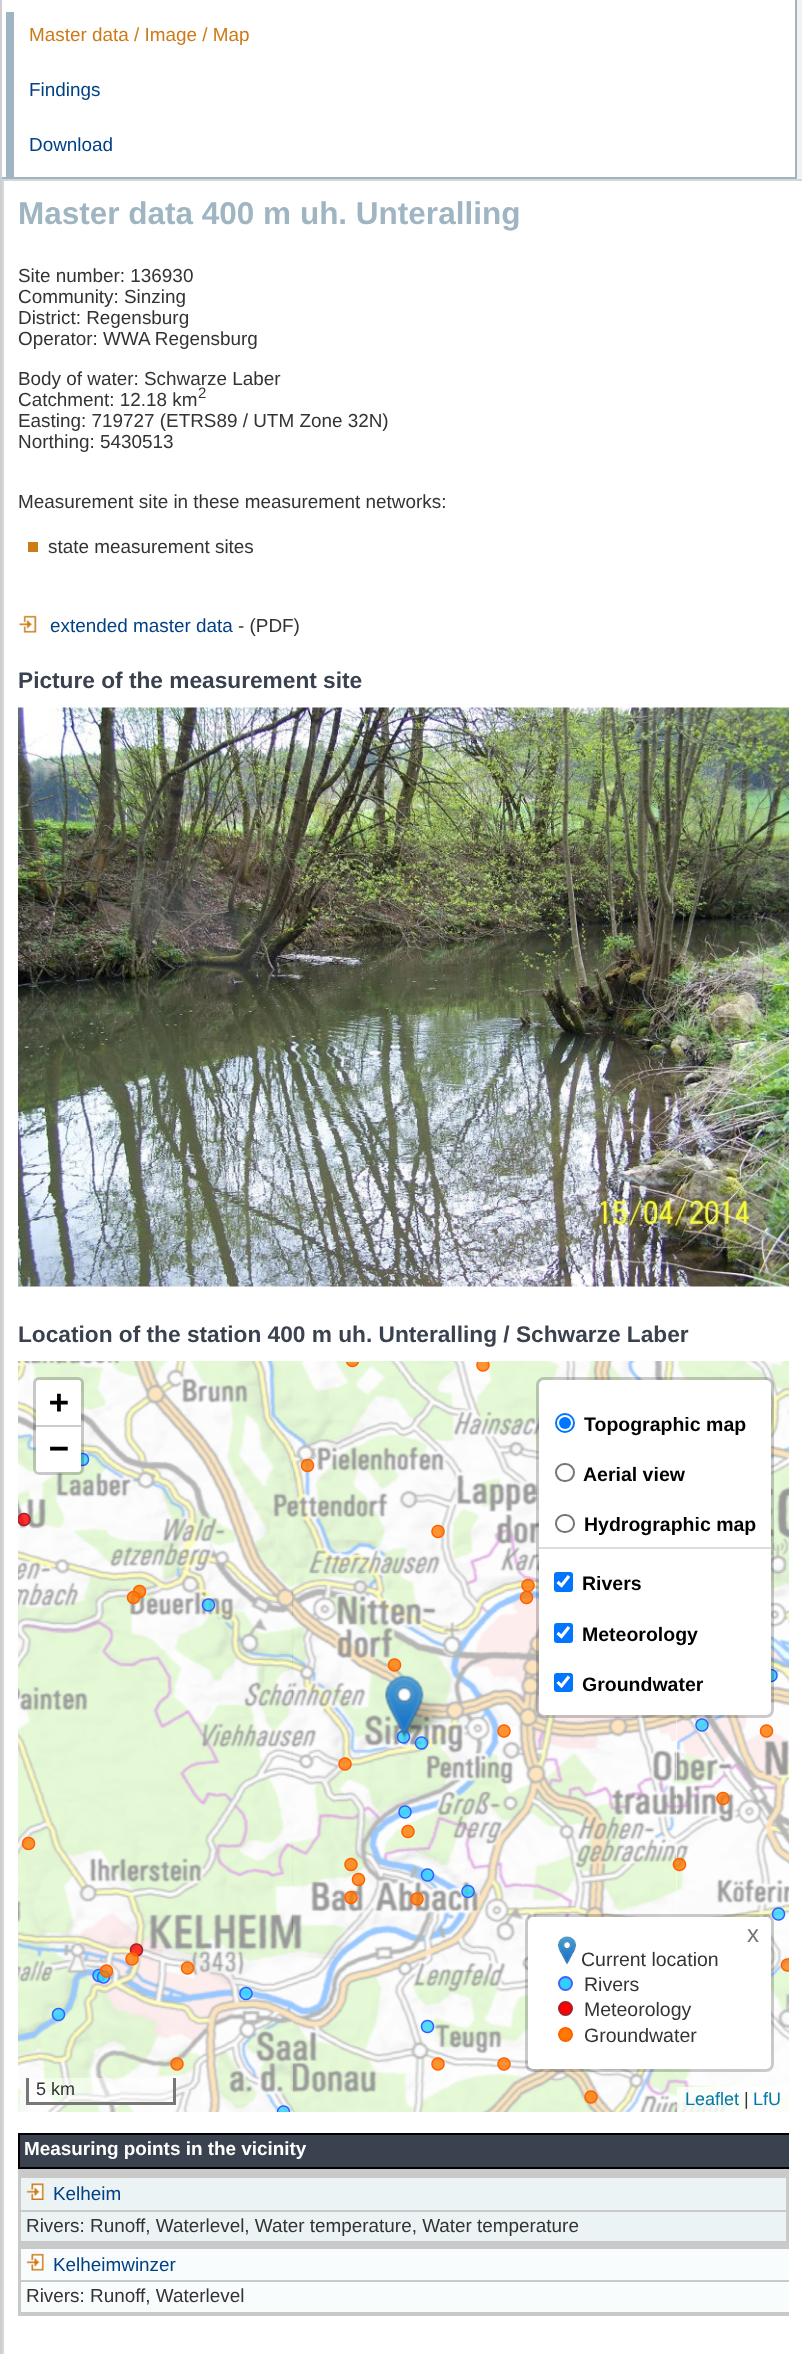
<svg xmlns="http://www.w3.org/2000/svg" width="802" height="2354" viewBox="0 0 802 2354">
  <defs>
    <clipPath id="clip1"><rect x="18" y="2133" width="771" height="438"/></clipPath>
  </defs>
  <rect width="100%" height="100%" fill="rgb(206,207,212)"/>
  <rect x="797" y="0" width="5" height="179" fill="rgb(242,242,242)"/>
  <rect x="2" y="0" width="793" height="177" fill="rgb(255,255,255)"/>
  <rect x="795" y="0" width="2" height="179" fill="rgb(159,181,193)"/>
  <rect x="2" y="177" width="795" height="2" fill="rgb(159,181,193)"/>
  <rect x="6" y="12" width="8" height="165" fill="rgb(159,181,193)"/>
  <text x="29" y="41" font-family="Liberation Sans" font-size="18.9" fill="rgb(204,123,23)">Master data / Image / Map</text>
  <g font-family="Liberation Sans" font-size="18.9" fill="rgb(0,65,133)">
    <text x="29" y="96">Findings</text>
    <text x="29" y="151">Download</text>
  </g>
  <rect x="4" y="181" width="798" height="2173" fill="rgb(255,255,255)"/>
  <rect x="2" y="179" width="800" height="2" fill="rgb(215,215,215)"/>
  <rect x="2" y="179" width="2" height="2175" fill="rgb(215,215,215)"/>
  <text x="18" y="224" font-family="Liberation Sans" font-size="31.5" font-weight="bold" fill="rgb(159,181,193)">Master data 400 m uh. Unteralling</text>
  <g font-family="Liberation Sans" font-size="18.9" fill="rgb(51,51,51)">
    <text>
      <tspan x="18" y="282">Site number: 136930</tspan>
      <tspan x="18" y="303">Community: Sinzing</tspan>
      <tspan x="18" y="324">District: Regensburg</tspan>
      <tspan x="18" y="345">Operator: WWA Regensburg</tspan>
    </text>
    <text>
      <tspan x="18" y="385">Body of water: Schwarze Laber</tspan>
      <tspan x="18" y="406">Catchment: 12.18 km</tspan>
    </text>
  </g>
  <text x="198" y="398" font-family="Liberation Sans" font-size="15" fill="rgb(51,51,51)">2</text>
  <g font-family="Liberation Sans" font-size="18.9" fill="rgb(51,51,51)">
    <text>
      <tspan x="18" y="427">Easting: 719727 (ETRS89 / UTM Zone 32N)</tspan>
      <tspan x="18" y="448">Northing: 5430513</tspan>
    </text>
    <text x="18" y="508">Measurement site in these measurement networks:</text>
  </g>
  <rect x="28" y="542" width="10" height="10" fill="rgb(204,123,23)"/>
  <text x="48" y="553" font-family="Liberation Sans" font-size="18.9" fill="rgb(51,51,51)">state measurement sites</text>
  <image x="19" y="615" width="18" height="18" href="pic1.png"/>
  <text x="50" y="632" font-family="Liberation Sans" font-size="18.9" fill="rgb(0,65,133)">extended master data</text>
  <text x="238" y="632" font-family="Liberation Sans" font-size="18.9" fill="rgb(51,51,51)">- (PDF)</text>
  <text x="18" y="688" font-family="Liberation Sans" font-size="22.7" font-weight="bold" fill="rgb(59,66,79)">Picture of the measurement site</text>
  <image x="18" y="707" width="771" height="580" href="pic2.png"/>
  <text x="18" y="1342" font-family="Liberation Sans" font-size="22.7" font-weight="bold" fill="rgb(59,66,79)">Location of the station 400 m uh. Unteralling / Schwarze Laber</text>
  <image x="292" y="1571" width="385" height="385" href="pic7.png"/>
  <image x="18" y="1571" width="275" height="385" href="pic6.png"/>
  <image x="18" y="1361" width="275" height="211" href="pic3.png"/>
  <image x="293" y="1361" width="384" height="211" href="pic4.png"/>
  <image x="677" y="1571" width="112" height="385" href="pic8.png"/>
  <image x="677" y="1361" width="112" height="211" href="pic5.png"/>
  <image x="18" y="1955" width="275" height="157" href="pic9.png"/>
  <image x="293" y="1955" width="384" height="157" href="pic10.png"/>
  <image x="677" y="1955" width="112" height="157" href="pic11.png"/>
  <image x="399" y="1694" width="45" height="43" href="pic14.png"/>
  <image x="18" y="1362" width="771" height="750" href="pic12.png"/>
  <image x="385" y="1674" width="39" height="63" href="pic13.png"/>
  <rect x="34.5" y="1378.5" width="48" height="95" rx="4.5" fill="none" stroke="rgba(0,0,0,0.2)" stroke-width="3"/>
  <path d="M39 1380H78C79.5 1380 81 1381.5 81 1383V1427H36V1383C36 1381.5 37.5 1380 39 1380Z" fill="rgb(255,255,255)"/>
  <rect x="36" y="1425" width="45" height="2" fill="rgb(204,204,204)"/>
  <text x="49" y="1413" font-family="DejaVu Sans Mono" font-size="33" font-weight="bold" fill="rgb(0,0,0)">+</text>
  <path d="M36 1427H81V1469C81 1470.5 79.5 1472 78 1472H39C37.5 1472 36 1470.5 36 1469Z" fill="rgb(255,255,255)"/>
  <text x="49" y="1459" font-family="DejaVu Sans Mono" font-size="33" font-weight="bold" fill="rgb(0,0,0)">−</text>
  <rect x="539" y="1380" width="232" height="335" rx="5" fill="rgb(255,255,255)"/>
  <rect x="537.5" y="1378.5" width="235" height="338" rx="6.5" fill="none" stroke="rgba(0,0,0,0.2)" stroke-width="3"/>
  <circle cx="565" cy="1423" r="9" fill="none" stroke="rgb(0,117,255)" stroke-width="2"/>
  <circle cx="565" cy="1423" r="6" fill="rgb(0,117,255)"/>
  <text x="584" y="1431" font-family="Liberation Sans" font-size="19.5" font-weight="bold" fill="rgb(0,0,0)">Topographic map</text>
  <rect x="556" y="1464" width="18" height="17" rx="8.5" fill="none" stroke="rgb(118,118,118)" stroke-width="2"/>
  <text x="583" y="1481" font-family="Liberation Sans" font-size="19.5" font-weight="bold" fill="rgb(0,0,0)">Aerial view</text>
  <rect x="556" y="1515" width="18" height="17" rx="8.5" fill="none" stroke="rgb(118,118,118)" stroke-width="2"/>
  <text x="584" y="1531" font-family="Liberation Sans" font-size="19.5" font-weight="bold" fill="rgb(0,0,0)">Hydrographic map</text>
  <rect x="539" y="1547" width="232" height="2" fill="rgb(221,221,221)"/>
  <rect x="554" y="1572" width="19" height="20" rx="3" fill="rgb(0,117,255)"/>
  <path d="M557.5 1582L561.5 1585.5L569 1576" fill="none" stroke="rgb(255,255,255)" stroke-width="3.1"/>
  <text x="582" y="1590" font-family="Liberation Sans" font-size="19.5" font-weight="bold" fill="rgb(0,0,0)">Rivers</text>
  <rect x="554" y="1623" width="19" height="20" rx="3" fill="rgb(0,117,255)"/>
  <path d="M557.5 1633L561.5 1636.5L569 1627" fill="none" stroke="rgb(255,255,255)" stroke-width="3.1"/>
  <text x="582" y="1641" font-family="Liberation Sans" font-size="19.5" font-weight="bold" fill="rgb(0,0,0)">Meteorology</text>
  <rect x="554" y="1673" width="19" height="19" rx="3" fill="rgb(0,117,255)"/>
  <path d="M557.5 1682L561.5 1686L569 1676.5" fill="none" stroke="rgb(255,255,255)" stroke-width="3.1"/>
  <text x="582" y="1691" font-family="Liberation Sans" font-size="19.5" font-weight="bold" fill="rgb(0,0,0)">Groundwater</text>
  <rect x="29" y="2078" width="144" height="24" fill="rgba(255,255,255,0.5)"/>
  <rect x="173" y="2078" width="3" height="27" fill="rgb(119,119,119)"/>
  <rect x="26" y="2102" width="150" height="3" fill="rgb(119,119,119)"/>
  <rect x="26" y="2078" width="3" height="27" fill="rgb(119,119,119)"/>
  <text x="36" y="2095" font-family="Liberation Sans" font-size="18" fill="rgb(51,51,51)">5 km</text>
  <rect x="528" y="1917" width="243" height="152" rx="5" fill="rgb(255,255,255)"/>
  <rect x="526.5" y="1915.5" width="246" height="155" rx="6.5" fill="none" stroke="rgba(0,0,0,0.2)" stroke-width="3"/>
  <text x="747" y="1942" font-family="Liberation Sans" font-size="24" fill="rgb(117,117,117)">x</text>
  <image x="558" y="1936" width="18" height="29" href="pic15.png"/>
  <text x="581" y="1966" font-family="Liberation Sans" font-size="19.5" fill="rgb(51,51,51)">Current location</text>
  <circle cx="565.5" cy="1983.5" r="6.5" fill="rgb(46,209,254)" stroke="rgb(72,96,250)" stroke-width="2"/>
  <text x="584" y="1991" font-family="Liberation Sans" font-size="19.5" fill="rgb(51,51,51)">Rivers</text>
  <circle cx="565.5" cy="2008.5" r="6.5" fill="rgb(255,0,0)" stroke="rgb(160,33,40)" stroke-width="2"/>
  <text x="584" y="2016" font-family="Liberation Sans" font-size="19.5" fill="rgb(51,51,51)">Meteorology</text>
  <circle cx="565.5" cy="2034.5" r="6.5" fill="rgb(255,120,0)" stroke="rgb(255,96,0)" stroke-width="2"/>
  <text x="584" y="2042" font-family="Liberation Sans" font-size="19.5" fill="rgb(51,51,51)">Groundwater</text>
  <rect x="677" y="2087" width="112" height="25" fill="rgba(255,255,255,0.8)"/>
  <text x="685" y="2105" font-family="Liberation Sans" font-size="18" fill="rgb(0,120,168)">Leaflet</text>
  <text x="744" y="2105" font-family="Liberation Sans" font-size="18" fill="rgb(51,51,51)">|</text>
  <text x="753" y="2105" font-family="Liberation Sans" font-size="18" fill="rgb(0,120,168)">LfU</text>
  <rect x="20" y="2135" width="769" height="32" fill="rgb(59,66,79)"/>
  <g clip-path="url(#clip1)">
    <rect x="19" y="2134" width="781" height="34" fill="none" stroke="rgb(0,0,0)" stroke-width="2"/>
  </g>
  <text x="24" y="2155" font-family="Liberation Sans" font-size="18.9" font-weight="bold" fill="rgb(255,255,255)">Measuring points in the vicinity</text>
  <rect x="18" y="2169" width="771" height="6" fill="rgb(201,201,201)"/>
  <rect x="21" y="2178" width="765" height="63" fill="rgb(235,243,245)"/>
  <rect x="19.5" y="2176.5" width="768" height="68" fill="none" stroke="rgb(201,201,201)" stroke-width="3"/>
  <rect x="21" y="2210" width="765" height="2" fill="rgb(201,201,201)"/>
  <image x="26" y="2183" width="18" height="17" href="pic16.png"/>
  <text x="53" y="2200" font-family="Liberation Sans" font-size="18.9" fill="rgb(0,65,133)">Kelheim</text>
  <rect x="21" y="2241" width="765" height="2" fill="rgb(201,201,201)"/>
  <text x="26" y="2232" font-family="Liberation Sans" font-size="18.9" fill="rgb(51,51,51)">Rivers: Runoff, Waterlevel, Water temperature, Water temperature</text>
  <rect x="21" y="2249" width="768" height="63" fill="rgb(248,252,253)"/>
  <rect x="18" y="2246" width="771" height="3" fill="rgb(201,201,201)"/>
  <rect x="18" y="2313" width="771" height="3" fill="rgb(201,201,201)"/>
  <rect x="18" y="2246" width="3" height="70" fill="rgb(201,201,201)"/>
  <rect x="21" y="2280" width="768" height="2" fill="rgb(201,201,201)"/>
  <image x="26" y="2253" width="18" height="18" href="pic17.png"/>
  <text x="53" y="2271" font-family="Liberation Sans" font-size="18.9" fill="rgb(0,65,133)">Kelheimwinzer</text>
  <rect x="21" y="2312" width="768" height="1" fill="rgb(201,201,201)"/>
  <text x="26" y="2302" font-family="Liberation Sans" font-size="18.9" fill="rgb(51,51,51)">Rivers: Runoff, Waterlevel</text>
</svg>
